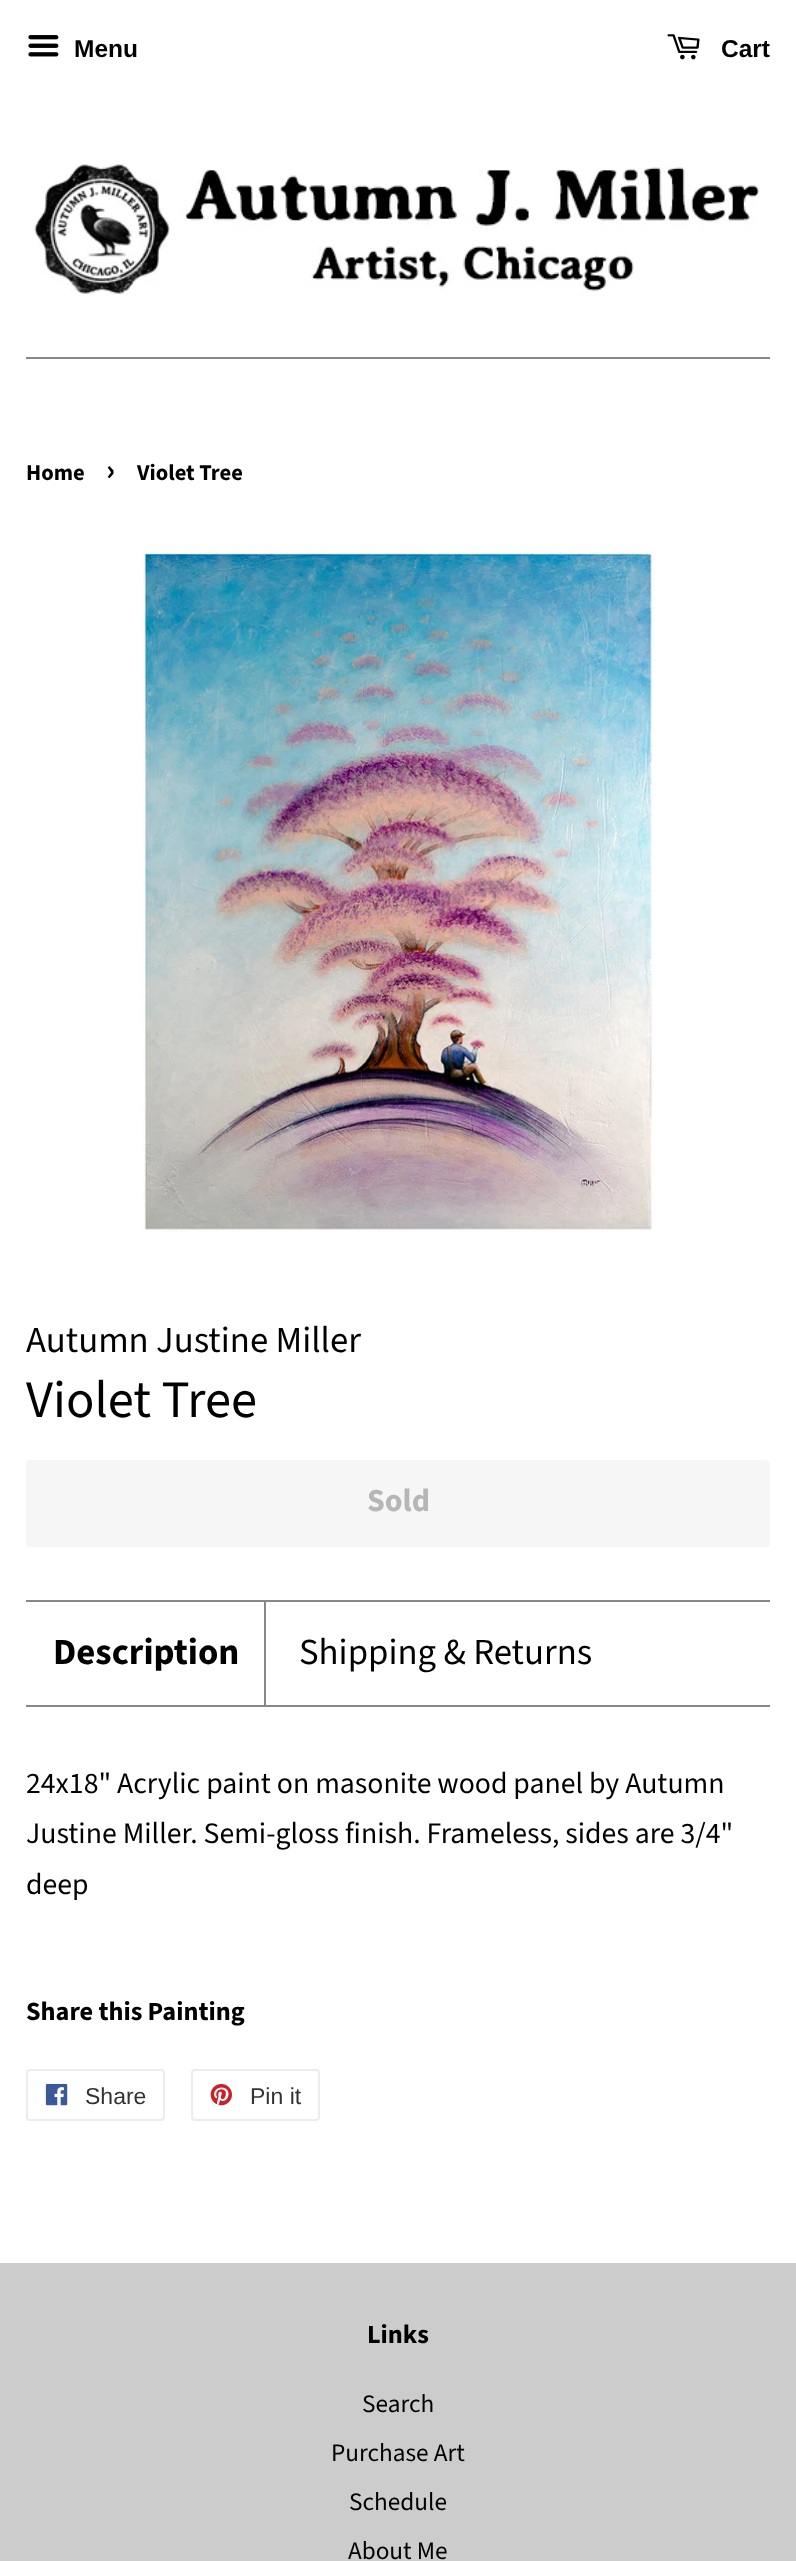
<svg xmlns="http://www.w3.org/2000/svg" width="796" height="2561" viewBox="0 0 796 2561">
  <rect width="100%" height="100%" fill="rgb(255,255,255)"/>
  <image x="28" y="35" width="31" height="22" href="pic1.png"/>
  <text x="74" y="57" font-family="Liberation Sans" font-size="24.5" font-weight="bold" fill="rgb(0,0,0)">Menu</text>
  <image x="667" y="34" width="33" height="26" href="pic2.png"/>
  <text x="721" y="57" font-family="Liberation Sans" font-size="24.5" font-weight="bold" fill="rgb(0,0,0)">Cart</text>
  <rect x="26" y="357" width="744" height="2" fill="rgb(136,136,136)"/>
  <image x="32" y="164" width="728" height="132" href="pic3.png"/>
  <text x="26" y="480" font-family="Source Sans Pro" font-size="22.5" font-weight="bold" fill="rgb(0,0,0)">Home</text>
  <text x="106" y="480" font-family="Source Sans Pro" font-size="31" font-weight="bold" fill="rgb(0,0,0)">›</text>
  <text x="137" y="480" font-family="Source Sans Pro" font-size="22.5" font-weight="bold" fill="rgb(0,0,0)">Violet Tree</text>
  <image x="139" y="551" width="515" height="681" href="pic4.png"/>
  <text x="26" y="1352" font-family="Source Sans Pro" font-size="36.75" fill="rgb(0,0,0)">Autumn Justine Miller</text>
  <text x="26" y="1417" font-family="Source Sans Pro" font-size="52.5" fill="rgb(0,0,0)">Violet Tree</text>
  <rect x="26" y="1460" width="744" height="87" rx="4" fill="rgb(246,246,246)"/>
  <text x="367" y="1511" font-family="Source Sans Pro" font-size="32" font-weight="bold" fill="rgb(182,182,182)">Sold</text>
  <rect x="26" y="1600" width="744" height="2" fill="rgb(136,136,136)"/>
  <rect x="26" y="1705" width="744" height="2" fill="rgb(136,136,136)"/>
  <rect x="264" y="1601" width="2" height="104" fill="rgb(136,136,136)"/>
  <text x="53" y="1664" font-family="Source Sans Pro" font-size="36.75" font-weight="bold" fill="rgb(0,0,0)">Description</text>
  <text x="299" y="1664" font-family="Source Sans Pro" font-size="36.75" fill="rgb(0,0,0)">Shipping &amp; Returns</text>
  <g font-family="Source Sans Pro" font-size="29.75" fill="rgb(0,0,0)">
    <text>
      <tspan x="26" y="1793">24x18" Acrylic paint on masonite wood panel by Autumn</tspan>
      <tspan x="26" y="1843">Justine Miller. Semi-gloss finish. Frameless, sides are 3/4"</tspan>
      <tspan x="26" y="1894">deep</tspan>
    </text>
  </g>
  <text x="26" y="2020" font-family="Source Sans Pro" font-size="26.25" font-weight="bold" fill="rgb(0,0,0)">Share this Painting</text>
  <rect x="27" y="2070" width="137" height="50" rx="3" fill="none" stroke="rgb(236,236,236)" stroke-width="2"/>
  <image x="45" y="2083" width="23" height="23" href="pic5.png"/>
  <text x="85" y="2104" font-family="Liberation Sans" font-size="23" fill="rgb(51,51,51)">Share</text>
  <rect x="192" y="2070" width="127" height="50" rx="3" fill="none" stroke="rgb(236,236,236)" stroke-width="2"/>
  <image x="210" y="2083" width="22" height="23" href="pic6.png"/>
  <text x="250" y="2104" font-family="Liberation Sans" font-size="23" fill="rgb(51,51,51)">Pin it</text>
  <rect x="0" y="2263" width="796" height="298" fill="rgb(204,204,204)"/>
  <text x="367" y="2343" font-family="Source Sans Pro" font-size="26.25" font-weight="bold" fill="rgb(0,0,0)">Links</text>
  <g font-family="Source Sans Pro" font-size="25.25" fill="rgb(0,0,0)">
    <text x="362" y="2412">Search</text>
    <text x="331" y="2461">Purchase Art</text>
    <text x="349" y="2510">Schedule</text>
    <text x="348" y="2559">About Me</text>
  </g>
</svg>
